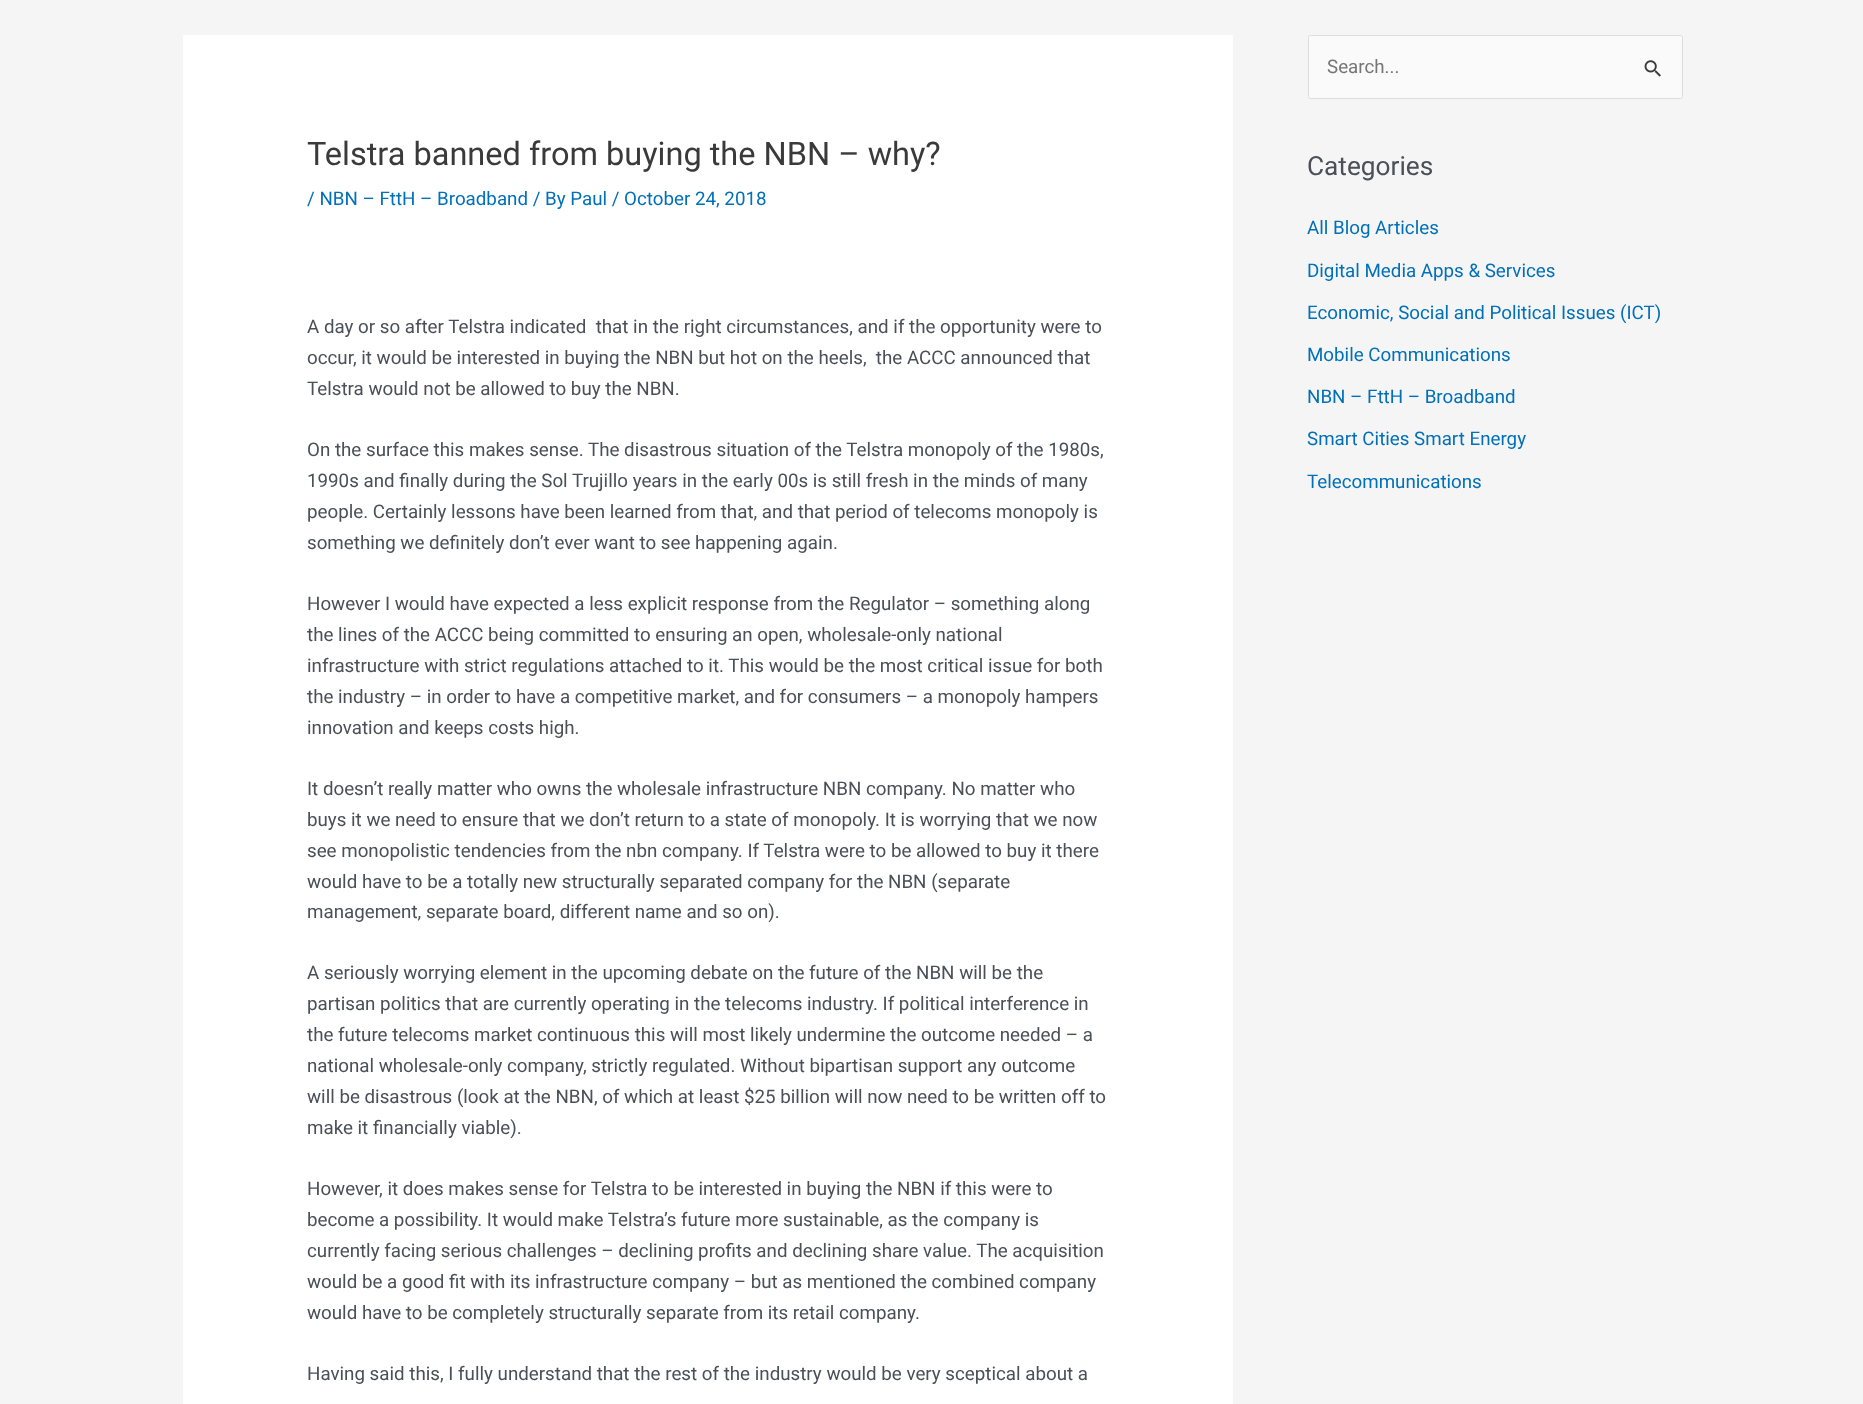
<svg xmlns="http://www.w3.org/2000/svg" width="1863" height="1404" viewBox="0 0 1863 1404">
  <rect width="100%" height="100%" fill="rgb(245,245,245)"/>
  <rect x="183" y="35" width="1050" height="1369" fill="rgb(255,255,255)"/>
  <text x="307" y="165" font-family="Roboto" font-size="32.5" fill="rgb(58,58,58)">Telstra banned from buying the NBN – why?</text>
  <text x="307" y="205" font-family="Roboto" font-size="18.75" fill="rgb(1,112,185)">/ NBN – FttH – Broadband / By Paul / October 24, 2018</text>
  <g font-family="Roboto" font-size="18.75" fill="rgb(75,79,88)">
    <text xml:space="preserve"><tspan x="307" y="333">A day or so after Telstra indicated  that in the right circumstances, and if the opportunity were to</tspan><tspan x="307" y="364">occur, it would be interested in buying the NBN but hot on the heels,  the ACCC announced that</tspan><tspan x="307" y="395">Telstra would not be allowed to buy the NBN.</tspan></text>
    <text>
      <tspan x="307" y="456">On the surface this makes sense. The disastrous situation of the Telstra monopoly of the 1980s,</tspan>
      <tspan x="307" y="487">1990s and finally during the Sol Trujillo years in the early 00s is still fresh in the minds of many</tspan>
      <tspan x="307" y="518">people. Certainly lessons have been learned from that, and that period of telecoms monopoly is</tspan>
      <tspan x="307" y="549">something we definitely don’t ever want to see happening again.</tspan>
    </text>
    <text>
      <tspan x="307" y="610">However I would have expected a less explicit response from the Regulator – something along</tspan>
      <tspan x="307" y="641">the lines of the ACCC being committed to ensuring an open, wholesale-only national</tspan>
      <tspan x="307" y="672">infrastructure with strict regulations attached to it. This would be the most critical issue for both</tspan>
      <tspan x="307" y="703">the industry – in order to have a competitive market, and for consumers – a monopoly hampers</tspan>
      <tspan x="307" y="734">innovation and keeps costs high.</tspan>
    </text>
    <text>
      <tspan x="307" y="795">It doesn’t really matter who owns the wholesale infrastructure NBN company. No matter who</tspan>
      <tspan x="307" y="826">buys it we need to ensure that we don’t return to a state of monopoly. It is worrying that we now</tspan>
      <tspan x="307" y="857">see monopolistic tendencies from the nbn company. If Telstra were to be allowed to buy it there</tspan>
      <tspan x="307" y="888">would have to be a totally new structurally separated company for the NBN (separate</tspan>
      <tspan x="307" y="918">management, separate board, different name and so on).</tspan>
    </text>
    <text>
      <tspan x="307" y="979">A seriously worrying element in the upcoming debate on the future of the NBN will be the</tspan>
      <tspan x="307" y="1010">partisan politics that are currently operating in the telecoms industry. If political interference in</tspan>
      <tspan x="307" y="1041">the future telecoms market continuous this will most likely undermine the outcome needed – a</tspan>
      <tspan x="307" y="1072">national wholesale-only company, strictly regulated. Without bipartisan support any outcome</tspan>
      <tspan x="307" y="1103">will be disastrous (look at the NBN, of which at least $25 billion will now need to be written off to</tspan>
      <tspan x="307" y="1134">make it financially viable).</tspan>
    </text>
    <text>
      <tspan x="307" y="1195">However, it does makes sense for Telstra to be interested in buying the NBN if this were to</tspan>
      <tspan x="307" y="1226">become a possibility. It would make Telstra’s future more sustainable, as the company is</tspan>
      <tspan x="307" y="1257">currently facing serious challenges – declining profits and declining share value. The acquisition</tspan>
      <tspan x="307" y="1288">would be a good fit with its infrastructure company – but as mentioned the combined company</tspan>
      <tspan x="307" y="1319">would have to be completely structurally separate from its retail company.</tspan>
    </text>
    <text x="307" y="1380">Having said this, I fully understand that the rest of the industry would be very sceptical about a</text>
  </g>
  <rect x="1308.5" y="35.5" width="374" height="63" rx="2" fill="rgb(250,250,250)" stroke="rgb(221,221,221)"/>
  <text x="1327" y="73" font-family="Roboto" font-size="18.75" fill="rgb(117,117,117)">Search...</text>
  <image x="1644" y="60" width="17" height="17" href="pic1.png"/>
  <text x="1307" y="175" font-family="Roboto" font-size="26.25" fill="rgb(75,79,88)">Categories</text>
  <g font-family="Roboto" font-size="18.75" fill="rgb(1,112,185)">
    <text x="1307" y="234">All Blog Articles</text>
    <text x="1307" y="277">Digital Media Apps &amp; Services</text>
    <text x="1307" y="319">Economic, Social and Political Issues (ICT)</text>
    <text x="1307" y="361">Mobile Communications</text>
    <text x="1307" y="403">NBN – FttH – Broadband</text>
    <text x="1307" y="445">Smart Cities Smart Energy</text>
    <text x="1307" y="488">Telecommunications</text>
  </g>
</svg>
